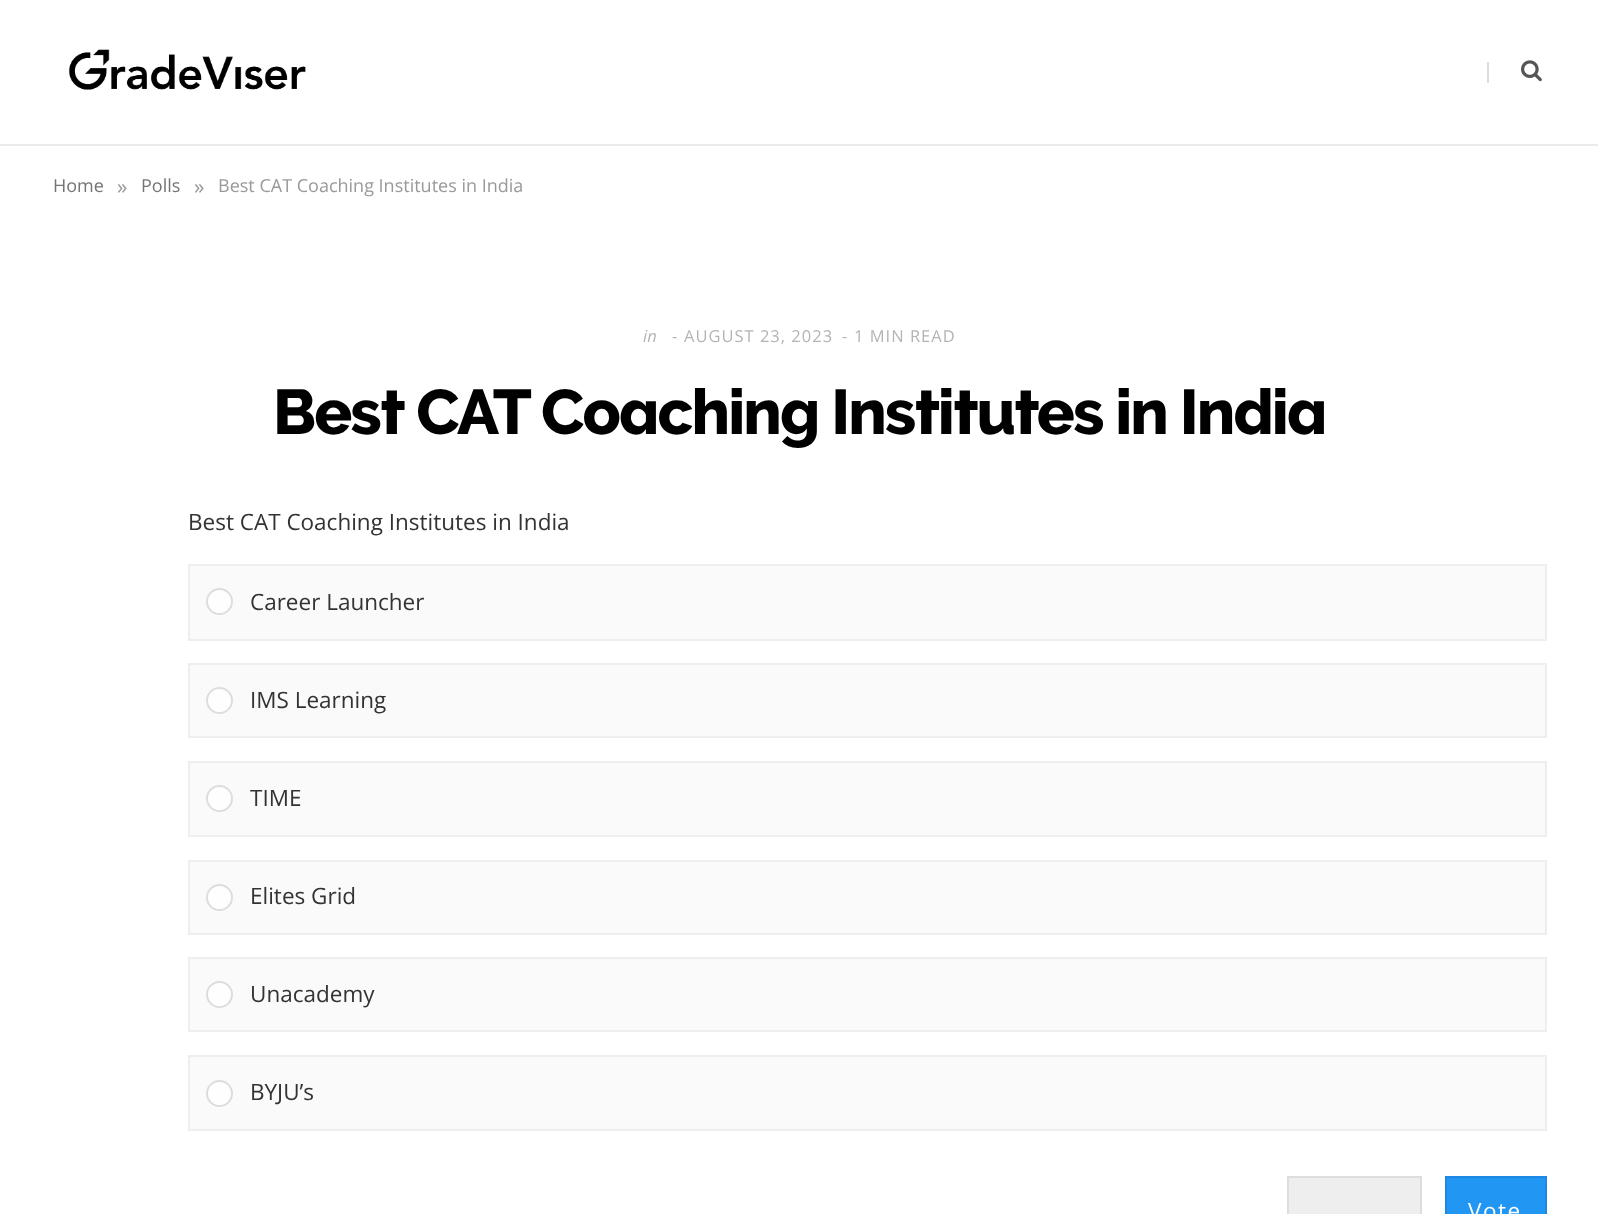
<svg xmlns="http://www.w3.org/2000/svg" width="1598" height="1214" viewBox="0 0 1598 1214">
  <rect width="100%" height="100%" fill="rgb(255,255,255)"/>
  <rect x="0" y="144" width="1598" height="2" fill="rgb(235,235,235)"/>
  <image x="68" y="49" width="238" height="41" href="pic1.png"/>
  <rect x="1487" y="62" width="2" height="21" fill="rgb(221,221,221)"/>
  <image x="1521" y="60" width="21" height="22" href="pic2.png"/>
  <text x="53" y="192" font-family="Open Sans" font-size="18" fill="rgb(116,116,116)">Home</text>
  <text x="117" y="194" font-family="Open Sans" font-size="21" fill="rgb(153,153,153)">»</text>
  <text x="141" y="192" font-family="Open Sans" font-size="18" fill="rgb(116,116,116)">Polls</text>
  <text x="194" y="194" font-family="Open Sans" font-size="21" fill="rgb(153,153,153)">»</text>
  <text x="218" y="192" font-family="Open Sans" font-size="18" fill="rgb(153,153,153)">Best CAT Coaching Institutes in India</text>
  <text x="643" y="342" font-family="Open Sans" font-size="16.5" font-style="italic" fill="rgb(180,180,180)">in</text>
  <text x="672" y="342" font-family="Open Sans" font-size="16.5" fill="rgb(180,180,180)">-</text>
  <text x="684" y="342" font-family="Open Sans" font-size="16.5" letter-spacing="1" fill="rgb(180,180,180)">AUGUST 23, 2023</text>
  <text x="842" y="342" font-family="Open Sans" font-size="16.5" fill="rgb(180,180,180)">-</text>
  <text x="854" y="342" font-family="Open Sans" font-size="16.5" letter-spacing="1" fill="rgb(180,180,180)">1 MIN READ</text>
  <text x="273" y="434" font-family="Raleway" font-size="63" font-weight="800" letter-spacing="-1.9" fill="rgb(0,0,0)">Best CAT Coaching Institutes in India</text>
  <text x="188" y="530" font-family="Open Sans" font-size="22.5" fill="rgb(51,51,51)">Best CAT Coaching Institutes in India</text>
  <rect x="189" y="565" width="1357" height="75" fill="rgb(250,250,250)" stroke="rgb(238,238,238)" stroke-width="2"/>
  <circle cx="219.5" cy="601.5" r="12.5" fill="rgb(254,254,254)" stroke="rgb(221,221,221)" stroke-width="2"/>
  <text x="250" y="610" font-family="Open Sans" font-size="22.5" fill="rgb(51,51,51)">Career Launcher</text>
  <rect x="189" y="664" width="1357" height="73" fill="rgb(250,250,250)" stroke="rgb(238,238,238)" stroke-width="2"/>
  <circle cx="219.5" cy="700.5" r="12.5" fill="rgb(254,254,254)" stroke="rgb(221,221,221)" stroke-width="2"/>
  <text x="250" y="708" font-family="Open Sans" font-size="22.5" fill="rgb(51,51,51)">IMS Learning</text>
  <rect x="189" y="762" width="1357" height="74" fill="rgb(250,250,250)" stroke="rgb(238,238,238)" stroke-width="2"/>
  <circle cx="219.5" cy="798.5" r="12.5" fill="rgb(254,254,254)" stroke="rgb(221,221,221)" stroke-width="2"/>
  <text x="250" y="806" font-family="Open Sans" font-size="22.5" fill="rgb(51,51,51)">TIME</text>
  <rect x="189" y="861" width="1357" height="73" fill="rgb(250,250,250)" stroke="rgb(238,238,238)" stroke-width="2"/>
  <circle cx="219.5" cy="897.5" r="12.5" fill="rgb(254,254,254)" stroke="rgb(221,221,221)" stroke-width="2"/>
  <text x="250" y="904" font-family="Open Sans" font-size="22.5" fill="rgb(51,51,51)">Elites Grid</text>
  <rect x="189" y="958" width="1357" height="73" fill="rgb(250,250,250)" stroke="rgb(238,238,238)" stroke-width="2"/>
  <circle cx="219.5" cy="994.5" r="12.5" fill="rgb(254,254,254)" stroke="rgb(221,221,221)" stroke-width="2"/>
  <text x="250" y="1002" font-family="Open Sans" font-size="22.5" fill="rgb(51,51,51)">Unacademy</text>
  <rect x="189" y="1056" width="1357" height="74" fill="rgb(250,250,250)" stroke="rgb(238,238,238)" stroke-width="2"/>
  <circle cx="219.5" cy="1093.5" r="12.5" fill="rgb(254,254,254)" stroke="rgb(221,221,221)" stroke-width="2"/>
  <text x="250" y="1100" font-family="Open Sans" font-size="22.5" fill="rgb(51,51,51)">BYJU’s</text>
  <rect x="1288" y="1177" width="133" height="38" fill="rgb(238,238,238)" stroke="rgb(221,221,221)" stroke-width="2"/>
  <rect x="1446" y="1177" width="100" height="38" fill="rgb(33,150,243)" stroke="rgb(30,136,229)" stroke-width="2"/>
  <text x="1468" y="1219" font-family="Open Sans" font-size="22.5" letter-spacing="1.5" fill="rgb(255,255,255)">Vote</text>
</svg>
